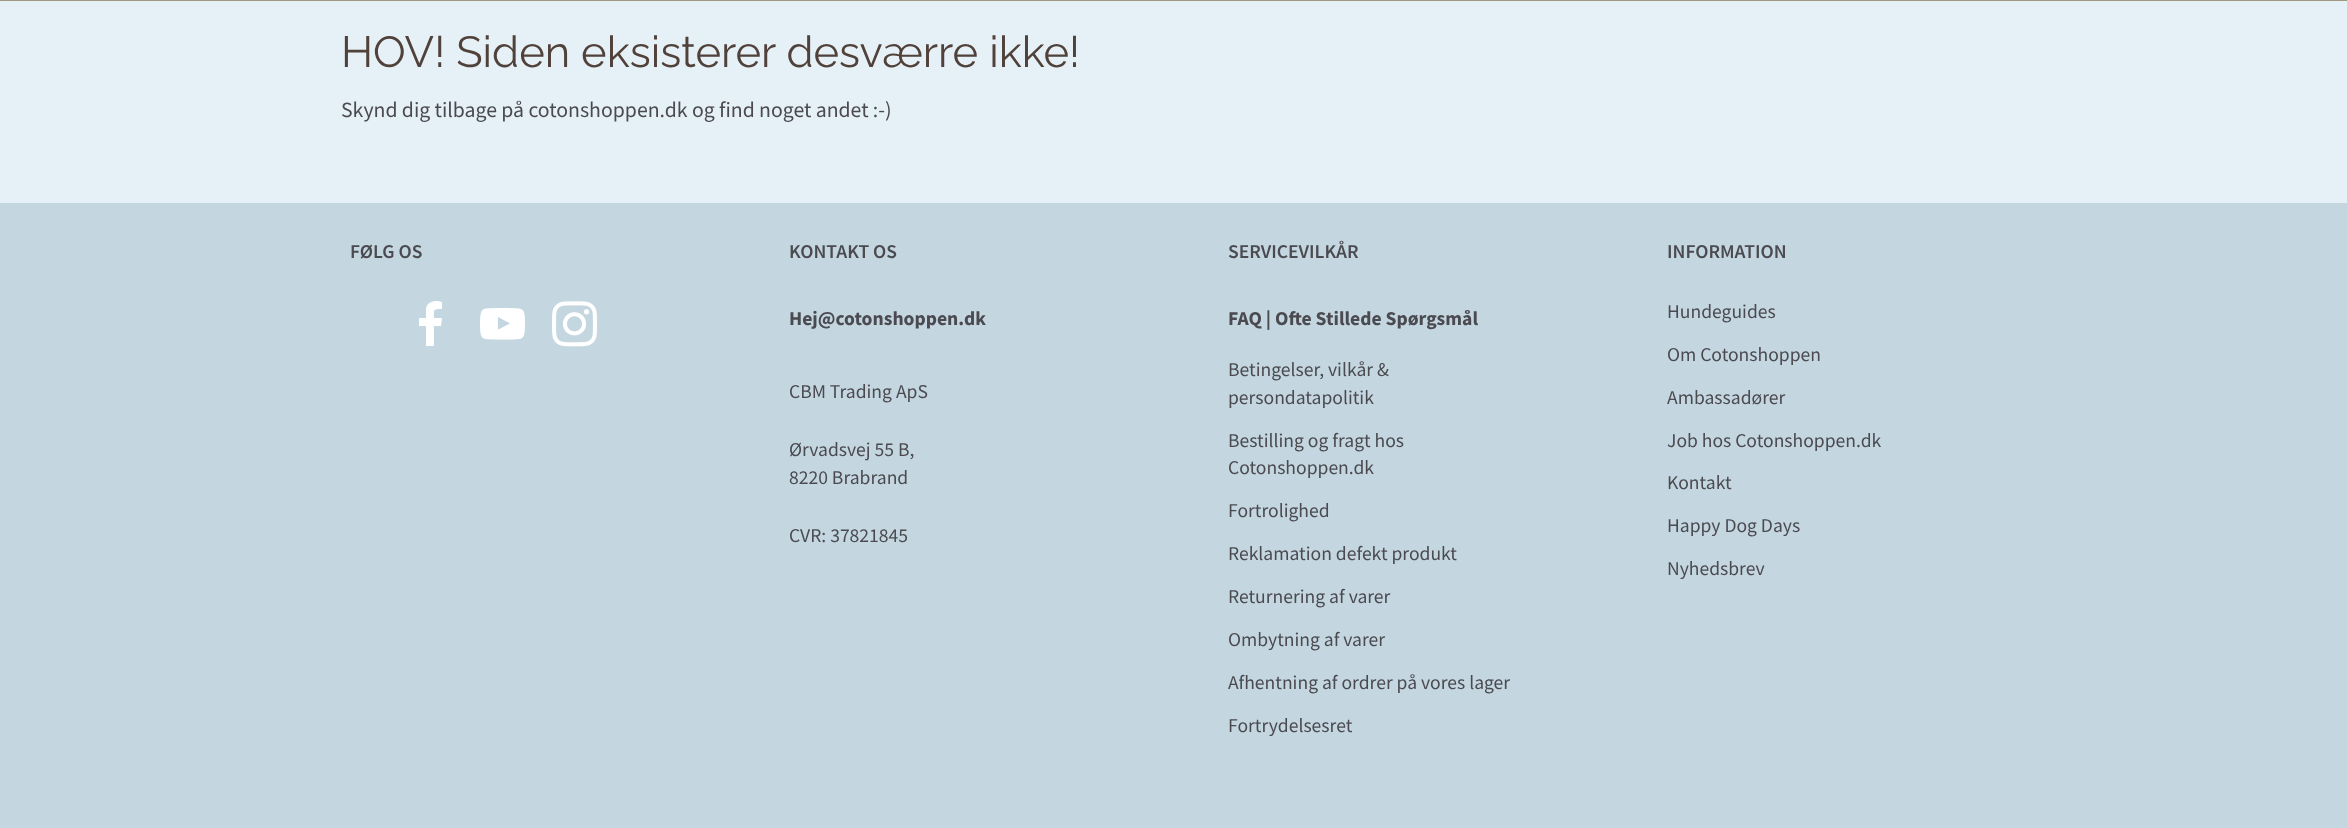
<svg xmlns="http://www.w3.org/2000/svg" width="2347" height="828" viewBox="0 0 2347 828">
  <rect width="100%" height="100%" fill="rgb(230,241,247)"/>
  <rect x="0" y="0" width="2347" height="1" fill="rgb(160,152,126)"/>
  <text x="341" y="67" font-family="Raleway" font-size="43.5" fill="rgb(80,65,58)">HOV! Siden eksisterer desværre ikke!</text>
  <text x="341" y="117" font-family="Source Sans Pro" font-size="21.75" fill="rgb(75,74,80)">Skynd dig tilbage på cotonshoppen.dk og find noget andet :-)</text>
  <rect x="0" y="203" width="2347" height="625" fill="rgb(196,215,225)"/>
  <text x="350" y="258" font-family="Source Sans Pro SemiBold" font-size="19.6" font-weight="600" fill="rgb(75,74,80)">FØLG OS</text>
  <path d="M434 346V326H441L442 318H434C434 309 433 309 442 309V302C436 300 428 301 426 308V318H419V326H426V346Z" fill="rgb(255,255,255)"/>
  <image x="480" y="308" width="45" height="32" href="pic1.png"/>
  <image x="552" y="301" width="45" height="46" href="pic2.png"/>
  <text x="789" y="258" font-family="Source Sans Pro SemiBold" font-size="19.6" font-weight="600" fill="rgb(75,74,80)">KONTAKT OS</text>
  <text x="789" y="325" font-family="Source Sans Pro" font-size="19.6" font-weight="bold" fill="rgb(75,74,80)">Hej@cotonshoppen.dk</text>
  <g font-family="Source Sans Pro" font-size="19.6" fill="rgb(75,74,80)">
    <text x="789" y="398">CBM Trading ApS</text>
    <text>
      <tspan x="789" y="456">Ørvadsvej 55 B,</tspan>
      <tspan x="789" y="484">8220 Brabrand</tspan>
    </text>
    <text x="789" y="542">CVR: 37821845</text>
  </g>
  <text x="1228" y="258" font-family="Source Sans Pro SemiBold" font-size="19.6" font-weight="600" fill="rgb(75,74,80)">SERVICEVILKÅR</text>
  <text x="1228" y="325" font-family="Source Sans Pro" font-size="19.6" font-weight="bold" fill="rgb(75,74,80)">FAQ | Ofte Stillede Spørgsmål</text>
  <g font-family="Source Sans Pro" font-size="19.6" fill="rgb(75,74,80)">
    <text>
      <tspan x="1228" y="376">Betingelser, vilkår &amp;</tspan>
      <tspan x="1228" y="404">persondatapolitik</tspan>
    </text>
    <text>
      <tspan x="1228" y="447">Bestilling og fragt hos</tspan>
      <tspan x="1228" y="474">Cotonshoppen.dk</tspan>
    </text>
    <text x="1228" y="517">Fortrolighed</text>
    <text x="1228" y="560">Reklamation defekt produkt</text>
    <text x="1228" y="603">Returnering af varer</text>
    <text x="1228" y="646">Ombytning af varer</text>
    <text x="1228" y="689">Afhentning af ordrer på vores lager</text>
    <text x="1228" y="732">Fortrydelsesret</text>
  </g>
  <text x="1667" y="258" font-family="Source Sans Pro SemiBold" font-size="19.6" font-weight="600" fill="rgb(75,74,80)">INFORMATION</text>
  <g font-family="Source Sans Pro" font-size="19.6" fill="rgb(75,74,80)">
    <text x="1667" y="318">Hundeguides</text>
    <text x="1667" y="361">Om Cotonshoppen</text>
    <text x="1667" y="404">Ambassadører</text>
    <text x="1667" y="447">Job hos Cotonshoppen.dk</text>
    <text x="1667" y="489">Kontakt</text>
    <text x="1667" y="532">Happy Dog Days</text>
    <text x="1667" y="575">Nyhedsbrev</text>
  </g>
</svg>
